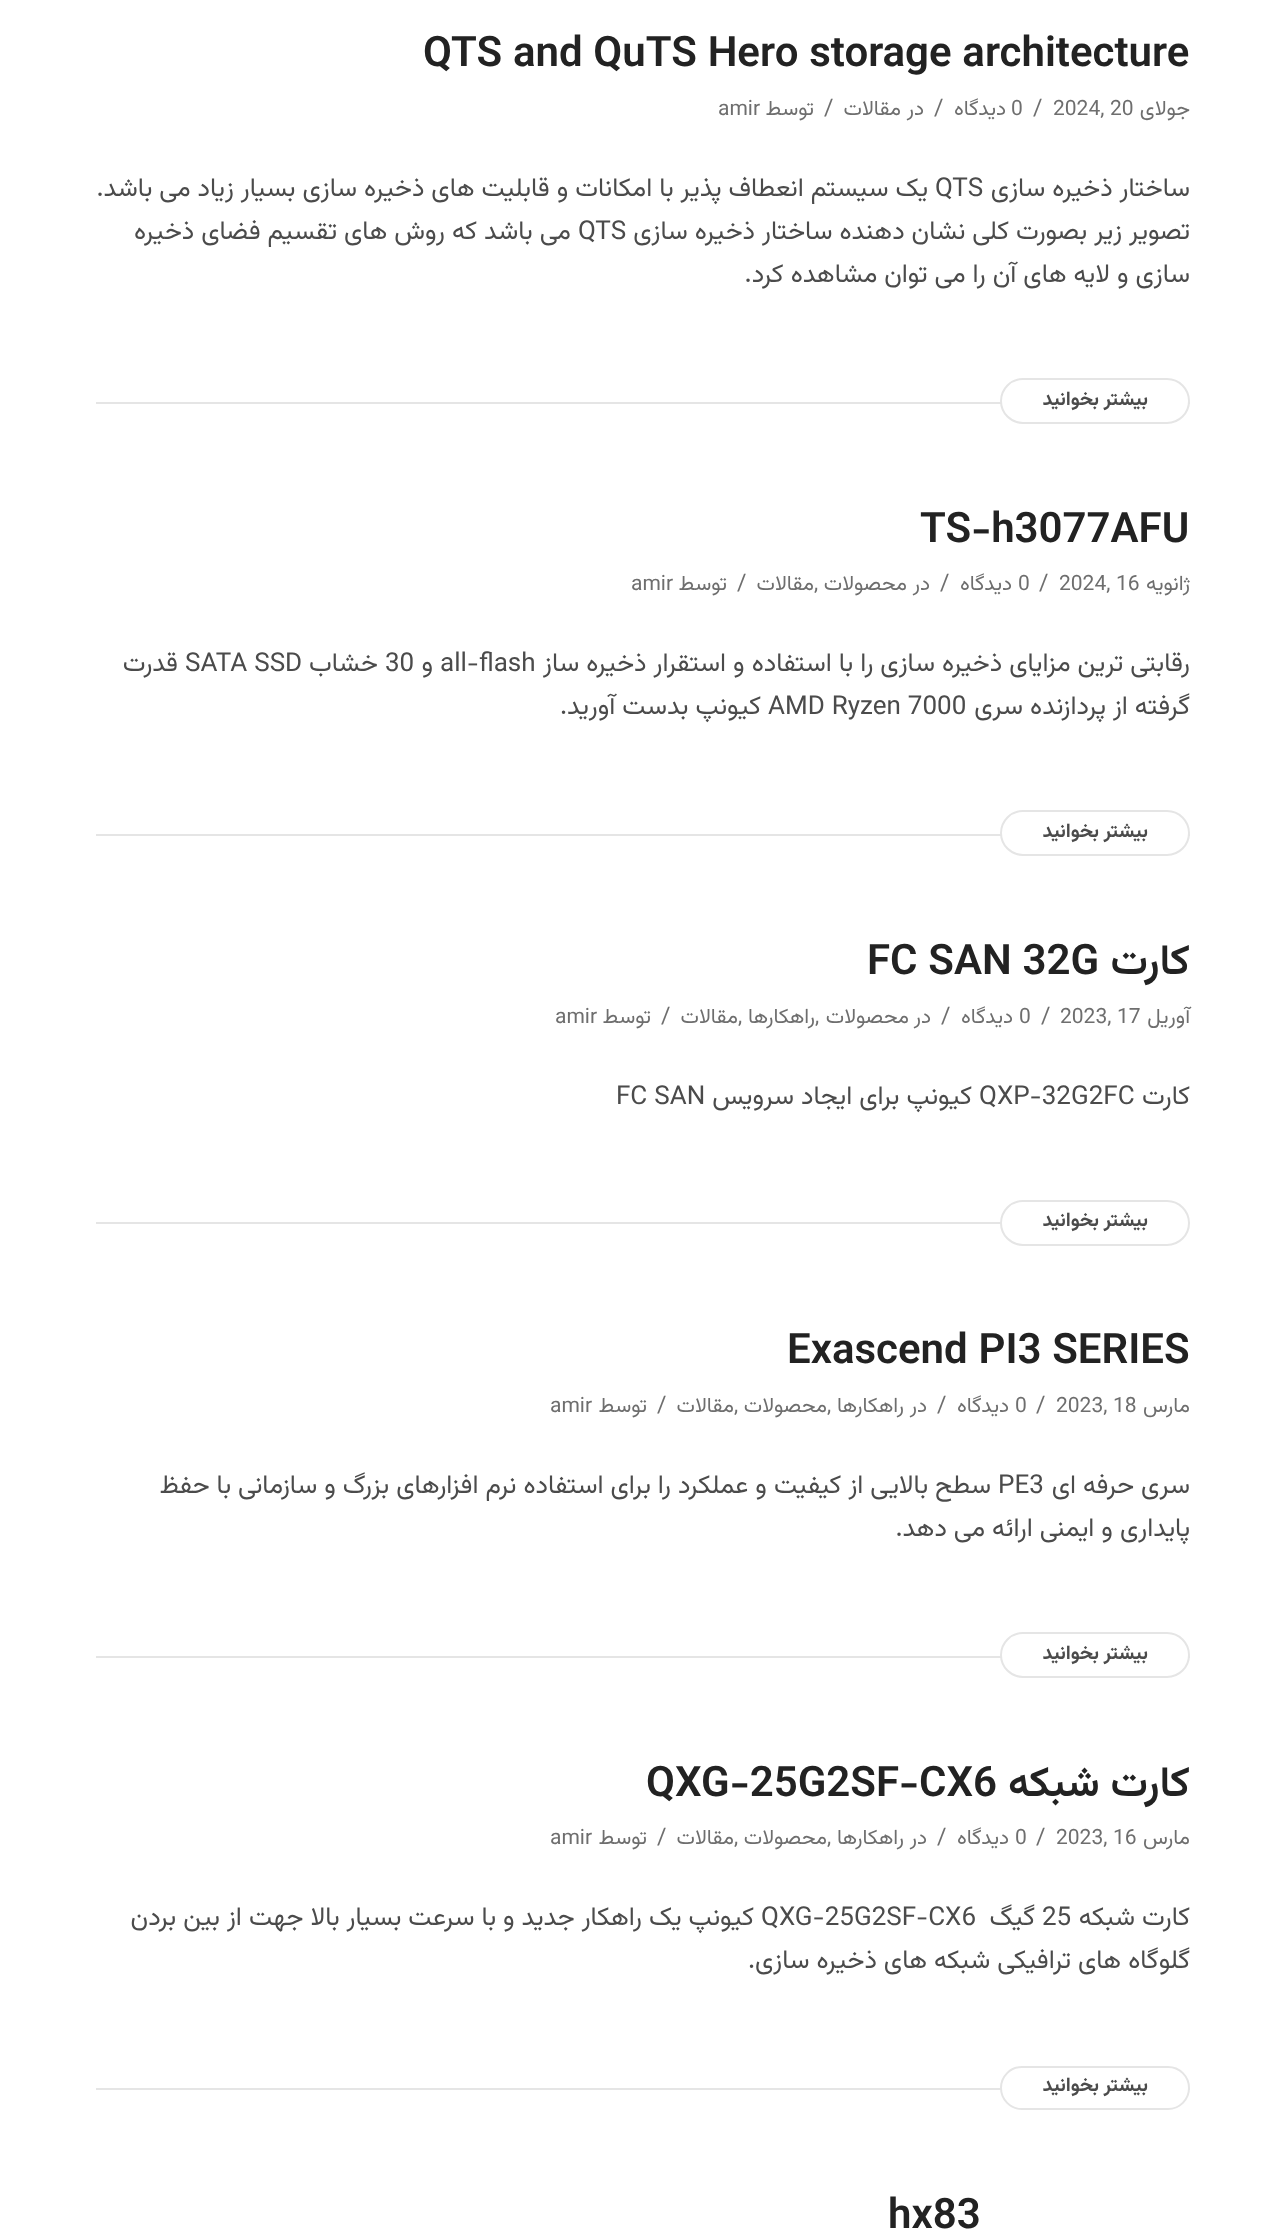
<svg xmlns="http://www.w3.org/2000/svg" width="1286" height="2230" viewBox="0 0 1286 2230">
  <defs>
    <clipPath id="clip1"><rect x="96" y="936" width="1094" height="390"/></clipPath>
  </defs>
  <rect width="100%" height="100%" fill="rgb(255,255,255)"/>
  <text x="423" y="66" font-family="Vazirmatn" font-size="42" font-weight="600" fill="rgb(34,34,34)">QTS and QuTS Hero storage architecture</text>
  <text x="1190" y="115" font-family="Vazirmatn" font-size="21" direction="rtl" fill="rgb(110,110,110)">جولای</text>
  <text x="1053" y="115" font-family="Vazirmatn" font-size="21" fill="rgb(110,110,110)">2024, 20</text>
  <text x="1033" y="115" font-family="Vazirmatn" font-size="23" fill="rgb(110,110,110)">/</text>
  <text x="1011" y="115" font-family="Vazirmatn" font-size="21" fill="rgb(110,110,110)">0</text>
  <text x="1006" y="115" font-family="Vazirmatn" font-size="21" direction="rtl" fill="rgb(110,110,110)">دیدگاه‌</text>
  <text x="934" y="115" font-family="Vazirmatn" font-size="23" fill="rgb(110,110,110)">/</text>
  <g font-family="Vazirmatn" font-size="21" direction="rtl" fill="rgb(110,110,110)">
    <text x="924" y="115">در</text>
    <text x="901" y="115">مقالات</text>
  </g>
  <text x="824" y="115" font-family="Vazirmatn" font-size="23" fill="rgb(110,110,110)">/</text>
  <text x="814" y="115" font-family="Vazirmatn" font-size="21" direction="rtl" fill="rgb(110,110,110)">توسط</text>
  <text x="718" y="115" font-family="Vazirmatn" font-size="21" fill="rgb(110,110,110)">amir</text>
  <text x="1190" y="196" font-family="Vazirmatn" font-size="26" direction="rtl" fill="rgb(75,75,75)">ساختار ذخیره سازی</text>
  <text x="935" y="196" font-family="Vazirmatn" font-size="26" fill="rgb(75,75,75)">QTS</text>
  <g font-family="Vazirmatn" font-size="26" direction="rtl" fill="rgb(75,75,75)">
    <text x="928" y="196">یک سیستم انعطاف پذیر با امکانات و قابلیت های ذخیره سازی بسیار زیاد می باشد.</text>
    <text x="1190" y="239">تصویر زیر بصورت کلی نشان دهنده ساختار ذخیره سازی</text>
  </g>
  <text x="578" y="239" font-family="Vazirmatn" font-size="26" fill="rgb(75,75,75)">QTS</text>
  <g font-family="Vazirmatn" font-size="26" direction="rtl" fill="rgb(75,75,75)">
    <text x="571" y="239">می باشد که روش های تقسیم فضای ذخیره</text>
    <text x="1190" y="282">سازی و لایه های آن را می توان مشاهده کرد.</text>
  </g>
  <rect x="96" y="402" width="1094" height="2" fill="rgb(229,229,229)"/>
  <rect x="1001" y="379" width="188" height="44" rx="22" fill="rgb(255,255,255)" stroke="rgb(229,229,229)" stroke-width="2"/>
  <text x="1148" y="405" font-family="Vazirmatn" font-size="19.5" font-weight="bold" direction="rtl" fill="rgb(75,75,75)">بیشتر بخوانید</text>
  <text x="920" y="542" font-family="Vazirmatn" font-size="42" font-weight="600" fill="rgb(34,34,34)">TS-h3077AFU</text>
  <text x="1190" y="590" font-family="Vazirmatn" font-size="21" direction="rtl" fill="rgb(110,110,110)">ژانویه</text>
  <text x="1059" y="590" font-family="Vazirmatn" font-size="21" fill="rgb(110,110,110)">2024, 16</text>
  <text x="1039" y="590" font-family="Vazirmatn" font-size="23" fill="rgb(110,110,110)">/</text>
  <text x="1018" y="590" font-family="Vazirmatn" font-size="21" fill="rgb(110,110,110)">0</text>
  <text x="1012" y="590" font-family="Vazirmatn" font-size="21" direction="rtl" fill="rgb(110,110,110)">دیدگاه‌</text>
  <text x="940" y="590" font-family="Vazirmatn" font-size="23" fill="rgb(110,110,110)">/</text>
  <g font-family="Vazirmatn" font-size="21" direction="rtl" fill="rgb(110,110,110)">
    <text x="930" y="590">در</text>
    <text x="907" y="590">محصولات</text>
  </g>
  <text x="814" y="590" font-family="Vazirmatn" font-size="21" fill="rgb(110,110,110)">,</text>
  <text x="814" y="590" font-family="Vazirmatn" font-size="21" direction="rtl" fill="rgb(110,110,110)">مقالات</text>
  <text x="737" y="590" font-family="Vazirmatn" font-size="23" fill="rgb(110,110,110)">/</text>
  <text x="727" y="590" font-family="Vazirmatn" font-size="21" direction="rtl" fill="rgb(110,110,110)">توسط</text>
  <text x="631" y="590" font-family="Vazirmatn" font-size="21" fill="rgb(110,110,110)">amir</text>
  <text x="1190" y="671" font-family="Vazirmatn" font-size="26" direction="rtl" fill="rgb(75,75,75)">رقابتی ترین مزایای ذخیره سازی را با استفاده و استقرار ذخیره ساز</text>
  <text x="440" y="671" font-family="Vazirmatn" font-size="26" fill="rgb(75,75,75)">all-flash</text>
  <text x="433" y="671" font-family="Vazirmatn" font-size="26" direction="rtl" fill="rgb(75,75,75)">و</text>
  <text x="385" y="671" font-family="Vazirmatn" font-size="26" fill="rgb(75,75,75)">30</text>
  <text x="378" y="671" font-family="Vazirmatn" font-size="26" direction="rtl" fill="rgb(75,75,75)">خشاب</text>
  <text x="185" y="671" font-family="Vazirmatn" font-size="26" fill="rgb(75,75,75)">SATA SSD</text>
  <g font-family="Vazirmatn" font-size="26" direction="rtl" fill="rgb(75,75,75)">
    <text x="178" y="671">قدرت</text>
    <text x="1190" y="714">گرفته از پردازنده سری</text>
  </g>
  <text x="768" y="714" font-family="Vazirmatn" font-size="26" fill="rgb(75,75,75)">AMD Ryzen 7000</text>
  <text x="761" y="714" font-family="Vazirmatn" font-size="26" direction="rtl" fill="rgb(75,75,75)">کیونپ بدست آورید.</text>
  <rect x="96" y="834" width="1094" height="2" fill="rgb(229,229,229)"/>
  <rect x="1001" y="811" width="188" height="44" rx="22" fill="rgb(255,255,255)" stroke="rgb(229,229,229)" stroke-width="2"/>
  <text x="1148" y="837" font-family="Vazirmatn" font-size="19.5" font-weight="bold" direction="rtl" fill="rgb(75,75,75)">بیشتر بخوانید</text>
  <g clip-path="url(#clip1)">
    <text x="1190" y="974" font-family="Vazirmatn" font-size="42" font-weight="600" direction="rtl" fill="rgb(34,34,34)">ّکارت</text>
  </g>
  <text x="867" y="974" font-family="Vazirmatn" font-size="42" font-weight="600" fill="rgb(34,34,34)">FC SAN 32G</text>
  <text x="1190" y="1023" font-family="Vazirmatn" font-size="21" direction="rtl" fill="rgb(110,110,110)">آوریل</text>
  <text x="1060" y="1023" font-family="Vazirmatn" font-size="21" fill="rgb(110,110,110)">2023, 17</text>
  <text x="1041" y="1023" font-family="Vazirmatn" font-size="23" fill="rgb(110,110,110)">/</text>
  <text x="1019" y="1023" font-family="Vazirmatn" font-size="21" fill="rgb(110,110,110)">0</text>
  <text x="1013" y="1023" font-family="Vazirmatn" font-size="21" direction="rtl" fill="rgb(110,110,110)">دیدگاه‌</text>
  <text x="941" y="1023" font-family="Vazirmatn" font-size="23" fill="rgb(110,110,110)">/</text>
  <g font-family="Vazirmatn" font-size="21" direction="rtl" fill="rgb(110,110,110)">
    <text x="931" y="1023">در</text>
    <text x="909" y="1023">محصولات</text>
  </g>
  <text x="815" y="1023" font-family="Vazirmatn" font-size="21" fill="rgb(110,110,110)">,</text>
  <text x="815" y="1023" font-family="Vazirmatn" font-size="21" direction="rtl" fill="rgb(110,110,110)">راهکارها</text>
  <text x="738" y="1023" font-family="Vazirmatn" font-size="21" fill="rgb(110,110,110)">,</text>
  <text x="738" y="1023" font-family="Vazirmatn" font-size="21" direction="rtl" fill="rgb(110,110,110)">مقالات</text>
  <text x="661" y="1023" font-family="Vazirmatn" font-size="23" fill="rgb(110,110,110)">/</text>
  <text x="651" y="1023" font-family="Vazirmatn" font-size="21" direction="rtl" fill="rgb(110,110,110)">توسط</text>
  <text x="555" y="1023" font-family="Vazirmatn" font-size="21" fill="rgb(110,110,110)">amir</text>
  <text x="1190" y="1104" font-family="Vazirmatn" font-size="26" direction="rtl" fill="rgb(75,75,75)">کارت</text>
  <text x="979" y="1104" font-family="Vazirmatn" font-size="26" fill="rgb(75,75,75)">QXP-32G2FC</text>
  <text x="972" y="1104" font-family="Vazirmatn" font-size="26" direction="rtl" fill="rgb(75,75,75)">کیونپ برای ایجاد سرویس</text>
  <text x="616" y="1104" font-family="Vazirmatn" font-size="26" fill="rgb(75,75,75)">FC SAN</text>
  <rect x="96" y="1222" width="1094" height="2" fill="rgb(229,229,229)"/>
  <rect x="1001" y="1201" width="188" height="44" rx="22" fill="rgb(255,255,255)" stroke="rgb(229,229,229)" stroke-width="2"/>
  <text x="1148" y="1226" font-family="Vazirmatn" font-size="19.5" font-weight="bold" direction="rtl" fill="rgb(75,75,75)">بیشتر بخوانید</text>
  <text x="787" y="1363" font-family="Vazirmatn" font-size="42" font-weight="600" fill="rgb(34,34,34)">Exascend PI3 SERIES</text>
  <text x="1190" y="1412" font-family="Vazirmatn" font-size="21" direction="rtl" fill="rgb(110,110,110)">مارس</text>
  <text x="1056" y="1412" font-family="Vazirmatn" font-size="21" fill="rgb(110,110,110)">2023, 18</text>
  <text x="1036" y="1412" font-family="Vazirmatn" font-size="23" fill="rgb(110,110,110)">/</text>
  <text x="1015" y="1412" font-family="Vazirmatn" font-size="21" fill="rgb(110,110,110)">0</text>
  <text x="1009" y="1412" font-family="Vazirmatn" font-size="21" direction="rtl" fill="rgb(110,110,110)">دیدگاه‌</text>
  <text x="937" y="1412" font-family="Vazirmatn" font-size="23" fill="rgb(110,110,110)">/</text>
  <g font-family="Vazirmatn" font-size="21" direction="rtl" fill="rgb(110,110,110)">
    <text x="927" y="1412">در</text>
    <text x="904" y="1412">راهکارها</text>
  </g>
  <text x="827" y="1412" font-family="Vazirmatn" font-size="21" fill="rgb(110,110,110)">,</text>
  <text x="827" y="1412" font-family="Vazirmatn" font-size="21" direction="rtl" fill="rgb(110,110,110)">محصولات</text>
  <text x="734" y="1412" font-family="Vazirmatn" font-size="21" fill="rgb(110,110,110)">,</text>
  <text x="734" y="1412" font-family="Vazirmatn" font-size="21" direction="rtl" fill="rgb(110,110,110)">مقالات</text>
  <text x="657" y="1412" font-family="Vazirmatn" font-size="23" fill="rgb(110,110,110)">/</text>
  <text x="647" y="1412" font-family="Vazirmatn" font-size="21" direction="rtl" fill="rgb(110,110,110)">توسط</text>
  <text x="550" y="1412" font-family="Vazirmatn" font-size="21" fill="rgb(110,110,110)">amir</text>
  <text x="1190" y="1493" font-family="Vazirmatn" font-size="26" direction="rtl" fill="rgb(75,75,75)">سری حرفه ای</text>
  <text x="998" y="1493" font-family="Vazirmatn" font-size="26" fill="rgb(75,75,75)">PE3</text>
  <g font-family="Vazirmatn" font-size="26" direction="rtl" fill="rgb(75,75,75)">
    <text x="991" y="1493">سطح بالایی از کیفیت و عملکرد را برای استفاده نرم افزارهای بزرگ و سازمانی با حفظ</text>
    <text x="1190" y="1536">پایداری و ایمنی ارائه می دهد.</text>
  </g>
  <rect x="96" y="1656" width="1094" height="2" fill="rgb(229,229,229)"/>
  <rect x="1001" y="1633" width="188" height="44" rx="22" fill="rgb(255,255,255)" stroke="rgb(229,229,229)" stroke-width="2"/>
  <text x="1148" y="1659" font-family="Vazirmatn" font-size="19.5" font-weight="bold" direction="rtl" fill="rgb(75,75,75)">بیشتر بخوانید</text>
  <text x="1190" y="1796" font-family="Vazirmatn" font-size="42" font-weight="600" direction="rtl" fill="rgb(34,34,34)">کارت شبکه</text>
  <text x="646" y="1796" font-family="Vazirmatn" font-size="42" font-weight="600" fill="rgb(34,34,34)">QXG-25G2SF-CX6</text>
  <text x="1190" y="1844" font-family="Vazirmatn" font-size="21" direction="rtl" fill="rgb(110,110,110)">مارس</text>
  <text x="1056" y="1844" font-family="Vazirmatn" font-size="21" fill="rgb(110,110,110)">2023, 16</text>
  <text x="1036" y="1844" font-family="Vazirmatn" font-size="23" fill="rgb(110,110,110)">/</text>
  <text x="1015" y="1844" font-family="Vazirmatn" font-size="21" fill="rgb(110,110,110)">0</text>
  <text x="1009" y="1844" font-family="Vazirmatn" font-size="21" direction="rtl" fill="rgb(110,110,110)">دیدگاه‌</text>
  <text x="937" y="1844" font-family="Vazirmatn" font-size="23" fill="rgb(110,110,110)">/</text>
  <g font-family="Vazirmatn" font-size="21" direction="rtl" fill="rgb(110,110,110)">
    <text x="927" y="1844">در</text>
    <text x="904" y="1844">راهکارها</text>
  </g>
  <text x="827" y="1844" font-family="Vazirmatn" font-size="21" fill="rgb(110,110,110)">,</text>
  <text x="827" y="1844" font-family="Vazirmatn" font-size="21" direction="rtl" fill="rgb(110,110,110)">محصولات</text>
  <text x="734" y="1844" font-family="Vazirmatn" font-size="21" fill="rgb(110,110,110)">,</text>
  <text x="734" y="1844" font-family="Vazirmatn" font-size="21" direction="rtl" fill="rgb(110,110,110)">مقالات</text>
  <text x="657" y="1844" font-family="Vazirmatn" font-size="23" fill="rgb(110,110,110)">/</text>
  <text x="647" y="1844" font-family="Vazirmatn" font-size="21" direction="rtl" fill="rgb(110,110,110)">توسط</text>
  <text x="550" y="1844" font-family="Vazirmatn" font-size="21" fill="rgb(110,110,110)">amir</text>
  <text x="1190" y="1925" font-family="Vazirmatn" font-size="26" direction="rtl" fill="rgb(75,75,75)">کارت شبکه</text>
  <text x="1042" y="1925" font-family="Vazirmatn" font-size="26" fill="rgb(75,75,75)">25</text>
  <text x="1035" y="1925" font-family="Vazirmatn" font-size="26" direction="rtl" fill="rgb(75,75,75)">گیگ</text>
  <text x="761" y="1925" font-family="Vazirmatn" font-size="26" fill="rgb(75,75,75)">QXG-25G2SF-CX6</text>
  <g font-family="Vazirmatn" font-size="26" direction="rtl" fill="rgb(75,75,75)">
    <text x="754" y="1925">کیونپ یک راهکار جدید و با سرعت بسیار بالا جهت از بین بردن</text>
    <text x="1190" y="1968">گلوگاه های ترافیکی شبکه های ذخیره سازی.</text>
  </g>
  <rect x="96" y="2088" width="1094" height="2" fill="rgb(229,229,229)"/>
  <rect x="1001" y="2067" width="188" height="42" rx="21" fill="rgb(255,255,255)" stroke="rgb(229,229,229)" stroke-width="2"/>
  <text x="1148" y="2091" font-family="Vazirmatn" font-size="19.5" font-weight="bold" direction="rtl" fill="rgb(75,75,75)">بیشتر بخوانید</text>
  <text x="888" y="2228" font-family="Vazirmatn" font-size="42" font-weight="600" fill="rgb(34,34,34)">hx83</text>
</svg>
